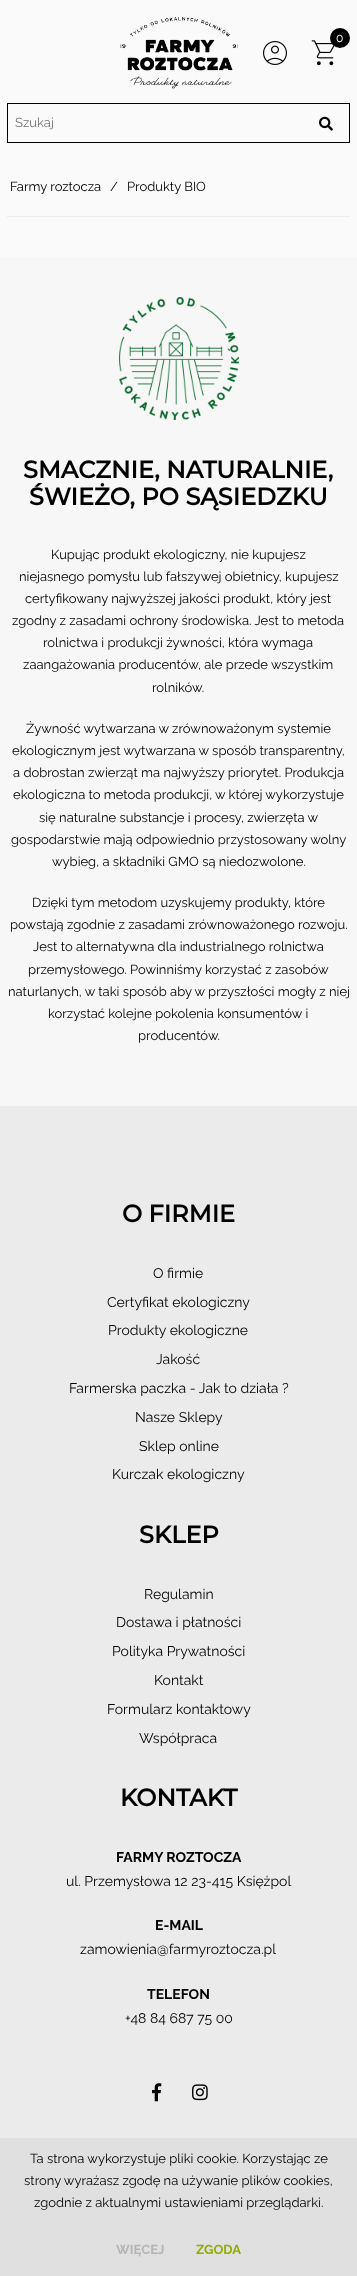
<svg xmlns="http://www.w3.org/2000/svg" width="357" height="2276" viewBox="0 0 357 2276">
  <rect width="100%" height="100%" fill="rgb(250,250,250)"/>
  <image x="120" y="17" width="118" height="72" href="pic1.png"/>
  <image x="311" y="40" width="24" height="26" href="pic2.png"/>
  <circle cx="340" cy="38" r="10" fill="rgb(0,0,0)"/>
  <text x="336" y="42" font-family="Raleway" font-size="12" fill="rgb(255,255,255)">0</text>
  <image x="263" y="41" width="24" height="24" href="pic3.png"/>
  <rect x="7.5" y="103.5" width="342" height="39" fill="none" stroke="rgb(0,0,0)"/>
  <text x="15" y="127" font-family="Raleway" font-size="13" fill="rgb(117,117,117)">Szukaj</text>
  <image x="319" y="116" width="14" height="15" href="pic4.png"/>
  <rect x="7" y="216" width="343" height="1" fill="rgb(235,235,235)"/>
  <g font-family="Raleway" font-size="13" fill="rgb(0,0,0)">
    <text x="10" y="191">Farmy roztocza</text>
    <text x="110" y="191">/</text>
    <text x="127" y="191">Produkty BIO</text>
  </g>
  <rect x="0" y="257" width="357" height="849" fill="rgb(247,247,247)"/>
  <image x="119" y="297" width="120" height="123" href="pic5.png"/>
  <g font-family="Montserrat" font-size="24" font-weight="bold" fill="rgb(0,0,0)">
    <text x="23" y="478">SMACZNIE, NATURALNIE,</text>
    <text x="29" y="505">ŚWIEŻO, PO SĄSIEDZKU</text>
  </g>
  <g font-family="Raleway" font-size="13" fill="rgb(0,0,0)">
    <text x="51" y="559">Kupując produkt ekologiczny, nie kupujesz</text>
    <text x="19" y="581">niejasnego pomysłu lub fałszywej obietnicy, kupujesz</text>
    <text x="25" y="603">certyfikowany najwyższej jakości produkt, który jest</text>
    <text x="12" y="625">zgodny z zasadami ochrony środowiska. Jest to metoda</text>
    <text x="43" y="647">rolnictwa i produkcji żywności, która wymaga</text>
    <text x="23" y="669">zaangażowania producentów, ale przede wszystkim</text>
    <text x="152" y="692">rolników.</text>
    <text x="26" y="733">Żywność wytwarzana w zrównoważonym systemie</text>
    <text x="12" y="755">ekologicznym jest wytwarzana w sposób transparentny,</text>
    <text>
      <tspan x="13" y="777">a dobrostan zwierząt ma najwyższy priorytet. Produkcja</tspan>
      <tspan x="13" y="799">ekologiczna to metoda produkcji, w której wykorzystuje</tspan>
    </text>
    <text x="39" y="822">się naturalne substancje i procesy, zwierzęta w</text>
    <text x="11" y="844">gospodarstwie mają odpowiednio przystosowany wolny</text>
    <text x="52" y="866">wybieg, a składniki GMO są niedozwolone.</text>
    <text x="32" y="907">Dzięki tym metodom uzyskujemy produkty, które</text>
    <text x="10" y="929">powstają zgodnie z zasadami zrównoważonego rozwoju.</text>
    <text x="33" y="951">Jest to alternatywna dla industrialnego rolnictwa</text>
    <text x="28" y="974">przemysłowego. Powinniśmy korzystać z zasobów</text>
    <text x="8" y="996">naturlanych, w taki sposób aby w przyszłości mogły z niej</text>
    <text x="48" y="1018">korzystać kolejne pokolenia konsumentów i</text>
    <text x="138" y="1040">producentów.</text>
  </g>
  <rect x="0" y="1106" width="357" height="1032" fill="rgb(235,235,235)"/>
  <text x="122" y="1222" font-family="Montserrat" font-size="24" font-weight="bold" fill="rgb(0,0,0)">O FIRMIE</text>
  <g font-family="Raleway" font-size="14" fill="rgb(0,0,0)">
    <text x="153" y="1278">O firmie</text>
    <text x="107" y="1307">Certyfikat ekologiczny</text>
    <text x="108" y="1335">Produkty ekologiczne</text>
    <text x="156" y="1364">Jakość</text>
    <text x="69" y="1393">Farmerska paczka - Jak to działa ?</text>
    <text x="135" y="1422">Nasze Sklepy</text>
    <text x="139" y="1451">Sklep online</text>
    <text x="112" y="1479">Kurczak ekologiczny</text>
  </g>
  <text x="139" y="1543" font-family="Montserrat" font-size="24" font-weight="bold" fill="rgb(0,0,0)">SKLEP</text>
  <g font-family="Raleway" font-size="14" fill="rgb(0,0,0)">
    <text x="144" y="1599">Regulamin</text>
    <text x="116" y="1627">Dostawa i płatności</text>
    <text x="112" y="1656">Polityka Prywatności</text>
    <text x="154" y="1685">Kontakt</text>
    <text x="107" y="1714">Formularz kontaktowy</text>
    <text x="139" y="1743">Współpraca</text>
  </g>
  <text x="120" y="1806" font-family="Montserrat" font-size="24" font-weight="bold" fill="rgb(0,0,0)">KONTAKT</text>
  <text x="116" y="1862" font-family="Raleway" font-size="14" font-weight="bold" fill="rgb(0,0,0)">FARMY ROZTOCZA</text>
  <text x="66" y="1886" font-family="Raleway" font-size="14" fill="rgb(0,0,0)">ul. Przemysłowa 12 23-415 Księżpol</text>
  <text x="155" y="1930" font-family="Raleway" font-size="14" font-weight="bold" fill="rgb(0,0,0)">E-MAIL</text>
  <text x="80" y="1954" font-family="Raleway" font-size="14" fill="rgb(0,0,0)">zamowienia@farmyroztocza.pl</text>
  <text x="147" y="1999" font-family="Raleway" font-size="14" font-weight="bold" fill="rgb(0,0,0)">TELEFON</text>
  <text x="125" y="2023" font-family="Raleway" font-size="14" fill="rgb(0,0,0)">+48 84 687 75 00</text>
  <image x="152" y="2083" width="10" height="19" href="pic6.png"/>
  <image x="192" y="2084" width="16" height="17" href="pic7.png"/>
  <rect x="0" y="2138" width="357" height="138" fill="rgb(224,224,224)"/>
  <g font-family="Raleway" font-size="13" fill="rgb(0,0,0)">
    <text x="30" y="2163">Ta strona wykorzystuje pliki cookie. Korzystając ze</text>
    <text x="24" y="2185">strony wyrażasz zgodę na używanie plików cookies,</text>
    <text x="34" y="2207">zgodnie z aktualnymi ustawieniami przeglądarki.</text>
  </g>
  <text x="116" y="2254" font-family="Raleway" font-size="13" font-weight="bold" fill="rgb(182,179,179)">WIĘCEJ</text>
  <text x="196" y="2254" font-family="Raleway" font-size="13" font-weight="bold" fill="rgb(148,173,2)">ZGODA</text>
</svg>
